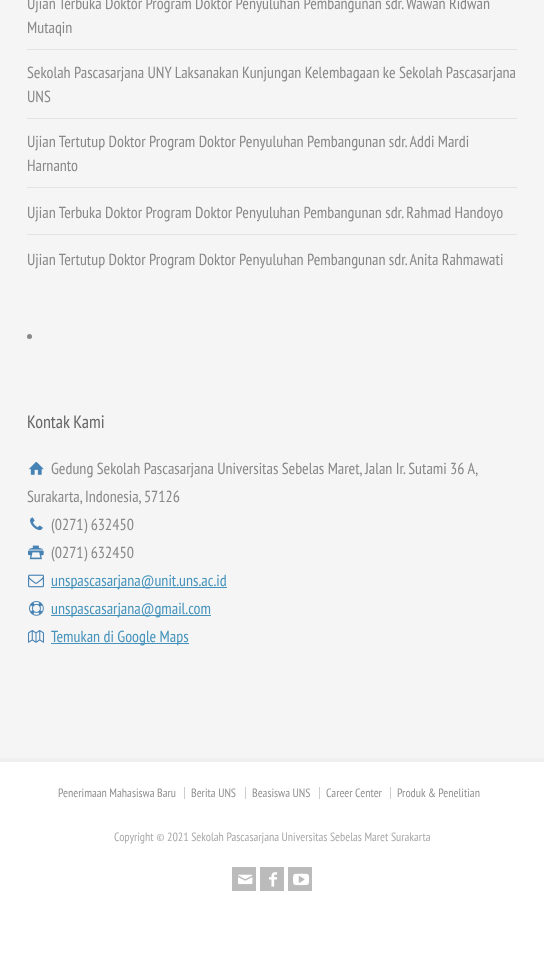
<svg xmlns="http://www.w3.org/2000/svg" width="544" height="969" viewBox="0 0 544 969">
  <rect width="100%" height="100%" fill="rgb(255,255,255)"/>
  <rect x="0" y="0" width="544" height="758" fill="rgb(245,245,245)"/>
  <rect x="27" y="49" width="490" height="1" fill="rgb(228,228,228)"/>
  <g font-family="PT Sans Narrow" font-size="16" fill="rgb(136,136,136)">
    <text>
      <tspan x="27" y="9">Ujian Terbuka Doktor Program Doktor Penyuluhan Pembangunan sdr. Wawan Ridwan</tspan>
      <tspan x="27" y="33">Mutaqin</tspan>
    </text>
  </g>
  <rect x="27" y="118" width="490" height="1" fill="rgb(228,228,228)"/>
  <g font-family="PT Sans Narrow" font-size="16" fill="rgb(136,136,136)">
    <text>
      <tspan x="27" y="78">Sekolah Pascasarjana UNY Laksanakan Kunjungan Kelembagaan ke Sekolah Pascasarjana</tspan>
      <tspan x="27" y="102">UNS</tspan>
    </text>
  </g>
  <rect x="27" y="187" width="490" height="1" fill="rgb(228,228,228)"/>
  <g font-family="PT Sans Narrow" font-size="16" fill="rgb(136,136,136)">
    <text>
      <tspan x="27" y="147">Ujian Tertutup Doktor Program Doktor Penyuluhan Pembangunan sdr. Addi Mardi</tspan>
      <tspan x="27" y="171">Harnanto</tspan>
    </text>
  </g>
  <rect x="27" y="234" width="490" height="1" fill="rgb(228,228,228)"/>
  <g font-family="PT Sans Narrow" font-size="16" fill="rgb(136,136,136)">
    <text x="27" y="218">Ujian Terbuka Doktor Program Doktor Penyuluhan Pembangunan sdr. Rahmad Handoyo</text>
    <text x="27" y="265">Ujian Tertutup Doktor Program Doktor Penyuluhan Pembangunan sdr. Anita Rahmawati</text>
  </g>
  <circle cx="29.5" cy="336.5" r="2.5" fill="rgb(136,136,136)"/>
  <text x="27" y="428" font-family="PT Sans Narrow" font-size="18" fill="rgb(102,102,102)">Kontak Kami</text>
  <image x="29" y="462" width="15" height="13" href="pic1.png"/>
  <g font-family="PT Sans Narrow" font-size="16" fill="rgb(136,136,136)">
    <text x="51" y="474">Gedung Sekolah Pascasarjana Universitas Sebelas Maret, Jalan Ir. Sutami 36 A,</text>
    <text x="27" y="502">Surakarta, Indonesia, 57126</text>
  </g>
  <image x="30" y="517" width="13" height="14" href="pic2.png"/>
  <text x="51" y="530" font-family="PT Sans Narrow" font-size="16" fill="rgb(136,136,136)">(0271) 632450</text>
  <image x="28" y="545" width="16" height="15" href="pic3.png"/>
  <text x="51" y="558" font-family="PT Sans Narrow" font-size="16" fill="rgb(136,136,136)">(0271) 632450</text>
  <image x="28" y="574" width="16" height="14" href="pic4.png"/>
  <rect x="51" y="587" width="176" height="1" fill="rgb(69,147,188)"/>
  <text x="51" y="586" font-family="PT Sans Narrow" font-size="16" fill="rgb(69,147,188)">unspascasarjana@unit.uns.ac.id</text>
  <image x="29" y="601" width="15" height="15" href="pic5.png"/>
  <rect x="51" y="615" width="160" height="1" fill="rgb(69,147,188)"/>
  <text x="51" y="614" font-family="PT Sans Narrow" font-size="16" fill="rgb(69,147,188)">unspascasarjana@gmail.com</text>
  <image x="28" y="630" width="16" height="13" href="pic6.png"/>
  <rect x="51" y="643" width="138" height="1" fill="rgb(69,147,188)"/>
  <text x="51" y="642" font-family="PT Sans Narrow" font-size="16" fill="rgb(69,147,188)">Temukan di Google Maps</text>
  <rect x="0" y="758" width="544" height="4" fill="rgb(240,240,240)"/>
  <text x="58" y="797" font-family="PT Sans Narrow" font-size="12" fill="rgb(145,145,145)">Penerimaan Mahasiswa Baru</text>
  <rect x="184" y="787" width="1" height="12" fill="rgb(205,205,205)"/>
  <text x="191" y="797" font-family="PT Sans Narrow" font-size="12" fill="rgb(145,145,145)">Berita UNS</text>
  <rect x="245" y="787" width="1" height="12" fill="rgb(205,205,205)"/>
  <text x="252" y="797" font-family="PT Sans Narrow" font-size="12" fill="rgb(145,145,145)">Beasiswa UNS</text>
  <rect x="319" y="787" width="1" height="12" fill="rgb(205,205,205)"/>
  <text x="326" y="797" font-family="PT Sans Narrow" font-size="12" fill="rgb(145,145,145)">Career Center</text>
  <rect x="390" y="787" width="1" height="12" fill="rgb(205,205,205)"/>
  <text x="397" y="797" font-family="PT Sans Narrow" font-size="12" fill="rgb(145,145,145)">Produk &amp; Penelitian</text>
  <text x="114" y="841" font-family="PT Sans Narrow" font-size="12" fill="rgb(169,169,169)">Copyright © 2021 Sekolah Pascasarjana Universitas Sebelas Maret Surakarta</text>
  <rect x="232" y="867" width="24" height="24" fill="rgb(187,187,187)"/>
  <image x="238" y="874" width="15" height="11" href="pic7.png"/>
  <rect x="260" y="867" width="24" height="24" fill="rgb(187,187,187)"/>
  <image x="269" y="872" width="8" height="15" href="pic8.png"/>
  <rect x="288" y="867" width="24" height="24" fill="rgb(187,187,187)"/>
  <image x="293" y="873" width="16" height="13" href="pic9.png"/>
</svg>
